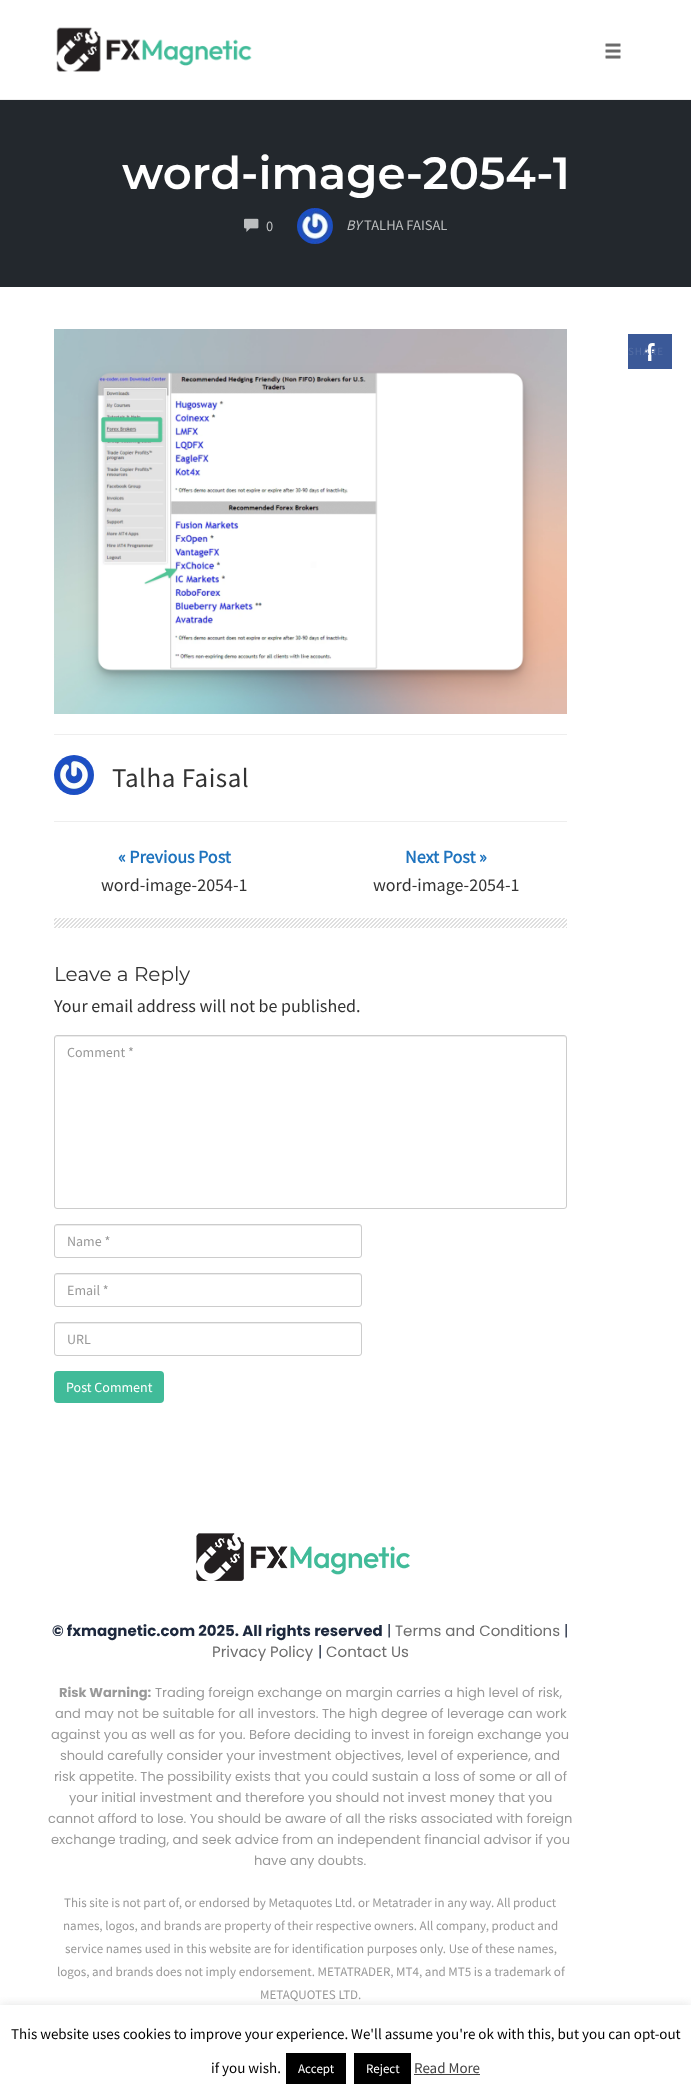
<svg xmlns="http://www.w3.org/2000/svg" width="691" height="2096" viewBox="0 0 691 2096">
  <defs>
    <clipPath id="clip1"><rect x="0" y="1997" width="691" height="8"/></clipPath>
  </defs>
  <rect width="100%" height="100%" fill="rgb(255,255,255)"/>
  <rect x="0" y="99" width="691" height="1" fill="rgb(240,240,240)"/>
  <image x="56" y="27" width="196" height="45" href="pic1.png"/>
  <image x="605" y="43" width="16" height="16" href="pic2.png"/>
  <rect x="0" y="100" width="691" height="187" fill="rgb(35,40,45)"/>
  <text x="122" y="189" font-family="Montserrat" font-size="45" font-weight="600" fill="rgb(255,255,255)">word-image-2054-1</text>
  <image x="244" y="218" width="15" height="14" href="pic3.png"/>
  <text x="266" y="231" font-family="Source Sans Pro" font-size="14.5" fill="rgb(189,191,192)">0</text>
  <image x="297" y="208" width="36" height="36" href="pic4.png"/>
  <text x="346" y="230" font-family="Source Sans Pro" font-size="14.5" font-style="italic" fill="rgb(189,191,192)">BY</text>
  <text x="364" y="230" font-family="Source Sans Pro" font-size="14.5" fill="rgb(189,191,192)">TALHA FAISAL</text>
  <image x="54" y="329" width="513" height="385" href="pic5.png"/>
  <rect x="54" y="734" width="513" height="1" fill="rgb(238,238,238)"/>
  <image x="54" y="755" width="40" height="40" href="pic6.png"/>
  <text x="112" y="787" font-family="Source Sans Pro" font-size="27" letter-spacing="0.5" fill="rgb(51,51,51)">Talha Faisal</text>
  <rect x="54" y="821" width="513" height="1" fill="rgb(238,238,238)"/>
  <text x="118" y="863" font-family="Source Sans Pro" font-size="18" font-weight="bold" fill="rgb(30,115,190)">« Previous Post</text>
  <text x="101" y="891" font-family="Source Sans Pro" font-size="18" fill="rgb(51,51,51)">word-image-2054-1</text>
  <text x="405" y="863" font-family="Source Sans Pro" font-size="18" font-weight="bold" fill="rgb(30,115,190)">Next Post »</text>
  <text x="373" y="891" font-family="Source Sans Pro" font-size="18" fill="rgb(51,51,51)">word-image-2054-1</text>
  <image x="54" y="918" width="513" height="10" href="pic7.png"/>
  <text x="54" y="981" font-family="Montserrat" font-size="20" fill="rgb(51,51,51)">Leave a Reply</text>
  <text x="54" y="1012" font-family="Source Sans Pro" font-size="18" fill="rgb(51,51,51)">Your email address will not be published.</text>
  <path d="M57 1037H564C565 1037 566 1038 566 1039C566 1038 566 1036 564 1036H57L55 1037V1039C55 1038 56 1037 57 1037Z" fill="rgb(236,236,236)"/>
  <rect x="54.5" y="1035.5" width="512" height="173" rx="2.5" fill="none" stroke="rgb(204,204,204)"/>
  <text x="67" y="1057" font-family="Source Sans Pro" font-size="14" fill="rgb(153,153,153)">Comment *</text>
  <path d="M57 1226H359C360 1226 361 1227 361 1228C361 1227 361 1225 359 1225H56L55 1228C55 1227 56 1226 57 1226Z" fill="rgb(236,236,236)"/>
  <rect x="54.5" y="1224.5" width="307" height="33" rx="2.5" fill="none" stroke="rgb(204,204,204)"/>
  <text x="67" y="1246" font-family="Source Sans Pro" font-size="14" fill="rgb(153,153,153)">Name *</text>
  <path d="M57 1275H359C360 1275 361 1276 361 1277C361 1276 361 1274 359 1274H56L55 1277C55 1276 56 1275 57 1275Z" fill="rgb(236,236,236)"/>
  <rect x="54.5" y="1273.5" width="307" height="33" rx="2.5" fill="none" stroke="rgb(204,204,204)"/>
  <text x="67" y="1295" font-family="Source Sans Pro" font-size="14" fill="rgb(153,153,153)">Email *</text>
  <path d="M57 1324H359C360 1324 361 1325 361 1326C361 1325 361 1323 359 1323H56L55 1326C55 1325 56 1324 57 1324Z" fill="rgb(236,236,236)"/>
  <rect x="54.5" y="1322.5" width="307" height="33" rx="2.5" fill="none" stroke="rgb(204,204,204)"/>
  <text x="67" y="1344" font-family="Source Sans Pro" font-size="14" fill="rgb(153,153,153)">URL</text>
  <rect x="54" y="1371" width="110" height="32" rx="4" fill="rgb(65,187,153)"/>
  <text x="66" y="1392" font-family="Source Sans Pro" font-size="14" fill="rgb(255,255,255)">Post Comment</text>
  <rect x="628" y="334" width="44" height="35" fill="rgb(59,89,152)"/>
  <image x="645" y="343" width="10" height="18" href="pic8.png"/>
  <text x="628" y="355" font-family="Source Sans Pro" font-size="11" letter-spacing="1" fill="rgb(84,110,165)">SHARE</text>
  <image x="196" y="1533" width="214" height="48" href="pic9.png"/>
  <text x="52" y="1636" font-family="Poppins" font-size="15" font-weight="bold" fill="rgb(29,40,61)">© fxmagnetic.com 2025. All rights reserved</text>
  <text x="387" y="1636" font-family="Poppins" font-size="15" fill="rgb(29,40,61)">|</text>
  <text x="395" y="1636" font-family="Poppins" font-size="15" fill="rgb(109,109,109)">Terms and Conditions</text>
  <text x="564" y="1636" font-family="Poppins" font-size="15" fill="rgb(29,40,61)">|</text>
  <text x="212" y="1657" font-family="Poppins" font-size="15" fill="rgb(109,109,109)">Privacy Policy</text>
  <text x="318" y="1657" font-family="Poppins" font-size="15" fill="rgb(29,40,61)">|</text>
  <text x="326" y="1657" font-family="Poppins" font-size="15" fill="rgb(109,109,109)">Contact Us</text>
  <text x="59" y="1697" font-family="Poppins" font-size="13" font-weight="bold" fill="rgb(153,153,153)">Risk Warning:</text>
  <g font-family="Poppins" font-size="13" fill="rgb(153,153,153)">
    <text x="155" y="1697">Trading foreign exchange on margin carries a high level of risk,</text>
    <text x="55" y="1718">and may not be suitable for all investors. The high degree of leverage can work</text>
    <text x="51" y="1739">against you as well as for you. Before deciding to invest in foreign exchange you</text>
    <text x="60" y="1760">should carefully consider your investment objectives, level of experience, and</text>
    <text x="54" y="1781">risk appetite. The possibility exists that you could sustain a loss of some or all of</text>
    <text x="69" y="1802">your initial investment and therefore you should not invest money that you</text>
    <text x="48" y="1823">cannot afford to lose. You should be aware of all the risks associated with foreign</text>
    <text x="51" y="1844">exchange trading, and seek advice from an independent financial advisor if you</text>
    <text x="254" y="1865">have any doubts.</text>
  </g>
  <g font-family="Source Sans Pro" font-size="13" fill="rgb(153,153,153)">
    <text x="64" y="1907">This site is not part of, or endorsed by Metaquotes Ltd. or Metatrader in any way. All product</text>
    <text x="63" y="1930">names, logos, and brands are property of their respective owners. All company, product and</text>
    <text x="65" y="1953">service names used in this website are for identification purposes only. Use of these names,</text>
    <text x="57" y="1976">logos, and brands does not imply endorsement. METATRADER, MT4, and MT5 is a trademark of</text>
    <text x="260" y="1999">METAQUOTES LTD.</text>
  </g>
  <g clip-path="url(#clip1)">
    <rect x="0" y="2004" width="691" height="91" fill="rgba(172,171,171,0.3)" filter="blur(5px)"/>
  </g>
  <g font-family="Source Sans Pro" font-size="15" fill="rgb(0,0,0)">
    <text x="11" y="2039">This website uses cookies to improve your experience. We'll assume you're ok with this, but you can opt-out</text>
    <text x="211" y="2073">if you wish.</text>
  </g>
  <rect x="286" y="2053" width="60" height="31" fill="rgb(0,0,0)"/>
  <text x="298" y="2073" font-family="Source Sans Pro" font-size="13" fill="rgb(255,255,255)">Accept</text>
  <rect x="354" y="2053" width="57" height="31" fill="rgb(0,0,0)"/>
  <text x="366" y="2073" font-family="Source Sans Pro" font-size="13" fill="rgb(255,255,255)">Reject</text>
  <text x="414" y="2073" font-family="Source Sans Pro" font-size="15" fill="rgb(68,68,68)">Read More</text>
  <rect x="414" y="2074" width="66" height="1" fill="rgb(68,68,68)"/>
</svg>
